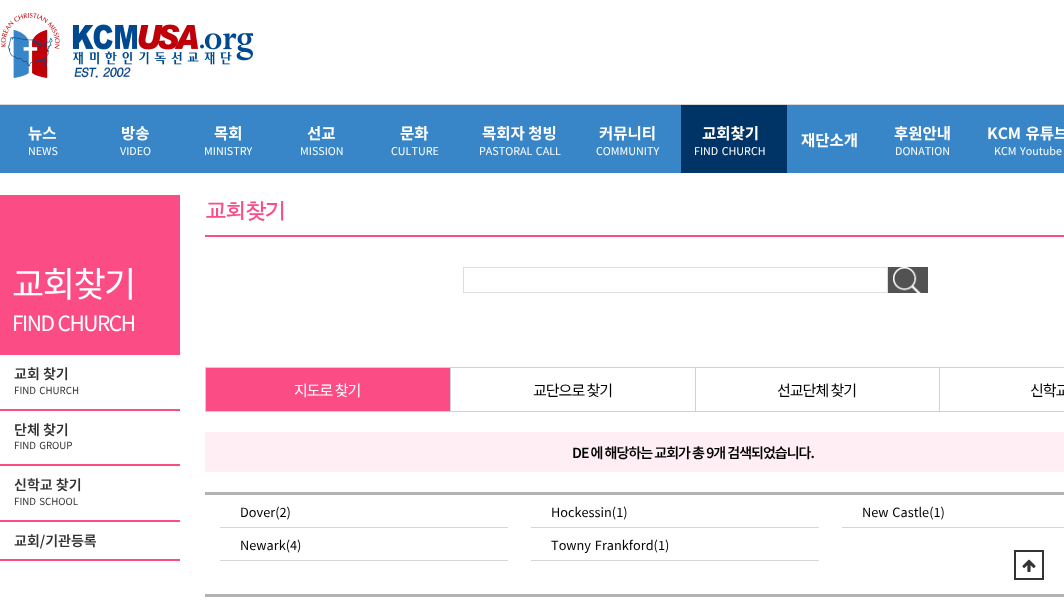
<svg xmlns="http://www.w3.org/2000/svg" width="1064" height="600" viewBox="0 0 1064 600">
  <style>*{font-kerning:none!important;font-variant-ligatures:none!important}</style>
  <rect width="100%" height="100%" fill="rgb(255,255,255)"/>
  <rect x="0" y="104" width="1064" height="1" fill="rgb(214,214,214)"/>
  <image x="1" y="13" width="252" height="65" href="pic1.png"/>
  <rect x="0" y="105" width="1064" height="68" fill="rgb(56,134,199)"/>
  <text x="28" y="139" font-family="Noto Sans KR" font-size="15.5" font-weight="bold" fill="rgb(255,255,255)">뉴스</text>
  <text x="28" y="155" font-family="Noto Sans KR" font-size="10.75" fill="rgb(255,255,255)">NEWS</text>
  <text x="121" y="139" font-family="Noto Sans KR" font-size="15.5" font-weight="bold" fill="rgb(255,255,255)">방송</text>
  <text x="120" y="155" font-family="Noto Sans KR" font-size="10.75" fill="rgb(255,255,255)">VIDEO</text>
  <text x="214" y="139" font-family="Noto Sans KR" font-size="15.5" font-weight="bold" fill="rgb(255,255,255)">목회</text>
  <text x="204" y="155" font-family="Noto Sans KR" font-size="10.75" fill="rgb(255,255,255)">MINISTRY</text>
  <text x="307" y="139" font-family="Noto Sans KR" font-size="15.5" font-weight="bold" fill="rgb(255,255,255)">선교</text>
  <text x="300" y="155" font-family="Noto Sans KR" font-size="10.75" fill="rgb(255,255,255)">MISSION</text>
  <text x="400" y="139" font-family="Noto Sans KR" font-size="15.5" font-weight="bold" fill="rgb(255,255,255)">문화</text>
  <text x="391" y="155" font-family="Noto Sans KR" font-size="10.75" fill="rgb(255,255,255)">CULTURE</text>
  <text x="482" y="139" font-family="Noto Sans KR" font-size="15.5" font-weight="bold" fill="rgb(255,255,255)">목회자 청빙</text>
  <text x="479" y="155" word-spacing="1" font-family="Noto Sans KR" font-size="10.75" fill="rgb(255,255,255)">PASTORAL CALL</text>
  <text x="599" y="139" font-family="Noto Sans KR" font-size="15.5" font-weight="bold" fill="rgb(255,255,255)">커뮤니티</text>
  <text x="596" y="155" font-family="Noto Sans KR" font-size="10.75" fill="rgb(255,255,255)">COMMUNITY</text>
  <rect x="681" y="105" width="106" height="68" fill="rgb(0,51,102)"/>
  <text x="702" y="139" font-family="Noto Sans KR" font-size="15.5" font-weight="bold" fill="rgb(255,255,255)">교회찾기</text>
  <text x="694" y="155" word-spacing="1" font-family="Noto Sans KR" font-size="10.75" fill="rgb(255,255,255)">FIND CHURCH</text>
  <g font-family="Noto Sans KR" font-size="15.5" font-weight="bold" fill="rgb(255,255,255)">
    <text x="801" y="146">재단소개</text>
    <text x="894" y="139">후원안내</text>
  </g>
  <text x="895" y="155" font-family="Noto Sans KR" font-size="10.75" fill="rgb(255,255,255)">DONATION</text>
  <text x="987" y="139" word-spacing="1" font-family="Noto Sans KR" font-size="15.5" font-weight="bold" fill="rgb(255,255,255)">KCM 유튜브</text>
  <text x="994" y="155" word-spacing="1" font-family="Noto Sans KR" font-size="10.75" fill="rgb(255,255,255)">KCM Youtube</text>
  <rect x="0" y="195" width="180" height="160" fill="rgb(252,76,134)"/>
  <text x="12" y="297" font-family="Noto Sans KR" font-size="35" letter-spacing="-1.5" fill="rgb(255,255,255)">교회찾기</text>
  <text x="12" y="331" word-spacing="1" font-family="Noto Sans KR" font-size="21" letter-spacing="-1.5" fill="rgb(255,255,255)">FIND CHURCH</text>
  <rect x="0" y="409" width="180" height="2" fill="rgb(252,76,134)"/>
  <text x="14" y="379" font-family="Noto Sans KR" font-size="14" font-weight="600" fill="rgb(51,51,51)">교회 찾기</text>
  <text x="14" y="394" word-spacing="1" font-family="Noto Sans KR" font-size="9.75" fill="rgb(51,51,51)">FIND CHURCH</text>
  <rect x="0" y="464" width="180" height="2" fill="rgb(252,76,134)"/>
  <text x="14" y="435" font-family="Noto Sans KR" font-size="14" font-weight="600" fill="rgb(51,51,51)">단체 찾기</text>
  <text x="14" y="449" word-spacing="1" font-family="Noto Sans KR" font-size="9.75" fill="rgb(51,51,51)">FIND GROUP</text>
  <rect x="0" y="520" width="180" height="2" fill="rgb(252,76,134)"/>
  <text x="14" y="490" font-family="Noto Sans KR" font-size="14" font-weight="600" fill="rgb(51,51,51)">신학교 찾기</text>
  <text x="14" y="505" word-spacing="1" font-family="Noto Sans KR" font-size="9.75" fill="rgb(51,51,51)">FIND SCHOOL</text>
  <rect x="0" y="559" width="180" height="2" fill="rgb(252,76,134)"/>
  <text x="14" y="546" font-family="Noto Sans KR" font-size="14" font-weight="600" fill="rgb(51,51,51)">교회/기관등록</text>
  <rect x="205" y="235" width="859" height="2" fill="rgb(252,76,134)"/>
  <text x="205" y="219" font-family="Dotum" font-size="21.5" font-weight="bold" letter-spacing="-1.5" fill="rgb(252,76,134)">교회찾기</text>
  <rect x="463.5" y="267.5" width="424" height="25" fill="none" stroke="rgb(221,221,221)"/>
  <rect x="888" y="267" width="40" height="26" fill="rgb(82,82,82)"/>
  <image x="893" y="267" width="30" height="30" href="pic2.png"/>
  <rect x="205" y="367" width="859" height="1" fill="rgb(209,209,209)"/>
  <rect x="205" y="367" width="1" height="45" fill="rgb(209,209,209)"/>
  <rect x="206" y="368" width="244" height="43" fill="rgb(252,76,134)"/>
  <rect x="450" y="368" width="1" height="44" fill="rgb(209,209,209)"/>
  <rect x="206" y="411" width="245" height="1" fill="rgb(209,209,209)"/>
  <text x="294" y="396" font-family="Noto Sans KR" font-size="15" letter-spacing="-1" fill="rgb(255,255,255)">지도로 찾기</text>
  <rect x="695" y="368" width="1" height="44" fill="rgb(209,209,209)"/>
  <rect x="451" y="411" width="245" height="1" fill="rgb(209,209,209)"/>
  <text x="533" y="396" font-family="Noto Sans KR" font-size="15" letter-spacing="-1" fill="rgb(0,0,0)">교단으로 찾기</text>
  <rect x="939" y="368" width="1" height="44" fill="rgb(209,209,209)"/>
  <rect x="696" y="411" width="368" height="1" fill="rgb(209,209,209)"/>
  <g font-family="Noto Sans KR" font-size="15" letter-spacing="-1" fill="rgb(0,0,0)">
    <text x="777" y="396">선교단체 찾기</text>
    <text x="1030" y="396">신학교</text>
  </g>
  <rect x="205" y="432" width="859" height="40" fill="rgb(255,239,244)"/>
  <text x="572" y="458" font-family="Noto Sans KR" font-size="14" font-weight="600" letter-spacing="-1" fill="rgb(0,0,0)">DE 에 해당하는 교회가 총 9개 검색되었습니다.</text>
  <rect x="205" y="492" width="859" height="3" fill="rgb(178,178,178)"/>
  <rect x="205" y="594" width="859" height="3" fill="rgb(178,178,178)"/>
  <rect x="220" y="527" width="288" height="1" fill="rgb(214,214,214)"/>
  <text x="240" y="517" font-family="Noto Sans KR" font-size="12.75" fill="rgb(0,0,0)">Dover(2)</text>
  <rect x="531" y="527" width="288" height="1" fill="rgb(214,214,214)"/>
  <text x="551" y="517" font-family="Noto Sans KR" font-size="12.75" fill="rgb(0,0,0)">Hockessin(1)</text>
  <rect x="842" y="527" width="222" height="1" fill="rgb(214,214,214)"/>
  <text x="862" y="517" word-spacing="1" font-family="Noto Sans KR" font-size="12.75" fill="rgb(0,0,0)">New Castle(1)</text>
  <rect x="220" y="560" width="288" height="1" fill="rgb(214,214,214)"/>
  <text x="240" y="550" font-family="Noto Sans KR" font-size="12.75" fill="rgb(0,0,0)">Newark(4)</text>
  <rect x="531" y="560" width="288" height="1" fill="rgb(214,214,214)"/>
  <text x="551" y="550" word-spacing="1" font-family="Noto Sans KR" font-size="12.75" fill="rgb(0,0,0)">Towny Frankford(1)</text>
  <rect x="1015" y="551" width="28" height="28" fill="none" stroke="rgb(51,51,51)" stroke-width="2"/>
  <image x="1022" y="559" width="14" height="14" href="pic3.png"/>
</svg>
